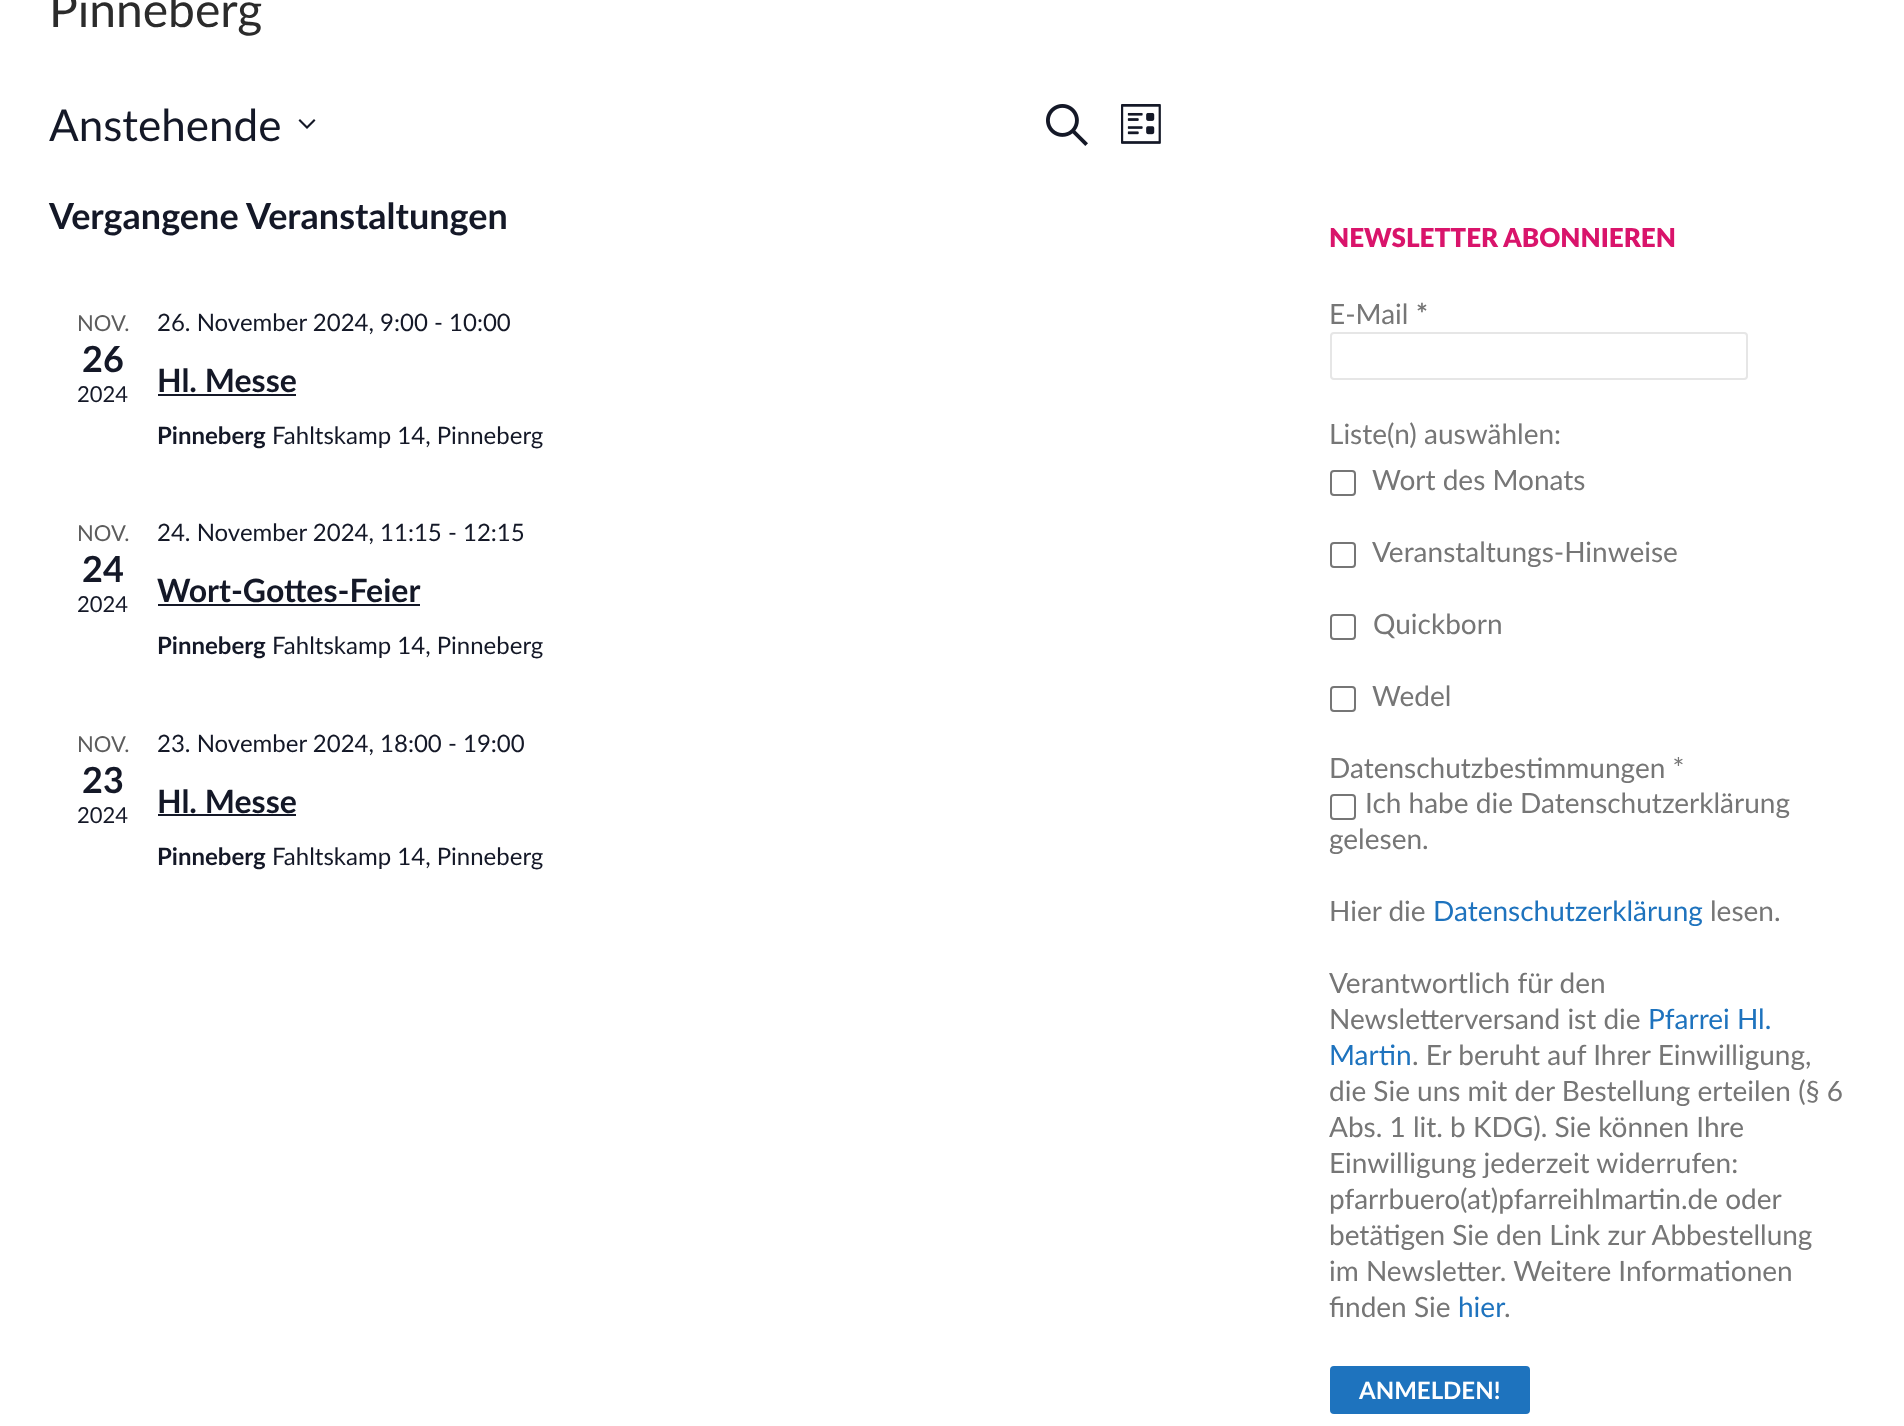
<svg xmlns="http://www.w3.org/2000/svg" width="1904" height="1426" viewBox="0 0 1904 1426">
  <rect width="100%" height="100%" fill="rgb(255,255,255)"/>
  <text x="49" y="27" font-family="Lato" font-size="48" fill="rgb(43,43,43)">Pinneberg</text>
  <text x="49" y="141" font-family="Lato" font-size="44" fill="rgb(20,24,39)">Anstehende</text>
  <path d="M300 119L307 126L314 119L315.5 120.5L307 129L298.5 120.5Z" fill="rgb(20,24,39)" fill-rule="evenodd"/>
  <image x="1046" y="104" width="42" height="42" href="pic1.png"/>
  <image x="1121" y="104" width="40" height="40" href="pic2.png"/>
  <text x="49" y="229" font-family="Lato" font-size="36" font-weight="bold" fill="rgb(20,24,39)">Vergangene Veranstaltungen</text>
  <text x="77" y="331" font-family="Lato" font-size="22" fill="rgb(93,93,93)">NOV.</text>
  <text x="82" y="372" font-family="Lato" font-size="36" font-weight="bold" fill="rgb(20,24,39)">26</text>
  <text x="77" y="402" font-family="Lato" font-size="22" fill="rgb(20,24,39)">2024</text>
  <text x="157" y="331" font-family="Lato" font-size="24" fill="rgb(20,24,39)">26. November 2024, 9:00 - 10:00</text>
  <text x="157" y="392" font-family="Lato" font-size="32" font-weight="bold" fill="rgb(20,24,39)">Hl. Messe</text>
  <rect x="158" y="394" width="138" height="2" fill="rgb(20,24,39)"/>
  <text x="157" y="444" font-family="Lato" font-size="24" font-weight="bold" fill="rgb(20,24,39)">Pinneberg</text>
  <text x="272" y="444" font-family="Lato" font-size="24" fill="rgb(20,24,39)">Fahltskamp 14, Pinneberg</text>
  <text x="77" y="541" font-family="Lato" font-size="22" fill="rgb(93,93,93)">NOV.</text>
  <text x="82" y="582" font-family="Lato" font-size="36" font-weight="bold" fill="rgb(20,24,39)">24</text>
  <text x="77" y="612" font-family="Lato" font-size="22" fill="rgb(20,24,39)">2024</text>
  <text x="157" y="541" font-family="Lato" font-size="24" fill="rgb(20,24,39)">24. November 2024, 11:15 - 12:15</text>
  <text x="157" y="602" font-family="Lato" font-size="32" font-weight="bold" fill="rgb(20,24,39)">Wort-Gottes-Feier</text>
  <rect x="158" y="604" width="262" height="2" fill="rgb(20,24,39)"/>
  <text x="157" y="654" font-family="Lato" font-size="24" font-weight="bold" fill="rgb(20,24,39)">Pinneberg</text>
  <text x="272" y="654" font-family="Lato" font-size="24" fill="rgb(20,24,39)">Fahltskamp 14, Pinneberg</text>
  <text x="77" y="752" font-family="Lato" font-size="22" fill="rgb(93,93,93)">NOV.</text>
  <text x="82" y="793" font-family="Lato" font-size="36" font-weight="bold" fill="rgb(20,24,39)">23</text>
  <text x="77" y="823" font-family="Lato" font-size="22" fill="rgb(20,24,39)">2024</text>
  <text x="157" y="752" font-family="Lato" font-size="24" fill="rgb(20,24,39)">23. November 2024, 18:00 - 19:00</text>
  <text x="157" y="813" font-family="Lato" font-size="32" font-weight="bold" fill="rgb(20,24,39)">Hl. Messe</text>
  <rect x="158" y="814" width="138" height="2" fill="rgb(20,24,39)"/>
  <text x="157" y="865" font-family="Lato" font-size="24" font-weight="bold" fill="rgb(20,24,39)">Pinneberg</text>
  <text x="272" y="865" font-family="Lato" font-size="24" fill="rgb(20,24,39)">Fahltskamp 14, Pinneberg</text>
  <text x="1329" y="247" font-family="Lato" font-size="26" font-weight="800" fill="rgb(217,20,107)">NEWSLETTER ABONNIEREN</text>
  <text x="1329" y="324" font-family="Lato" font-size="28" fill="rgb(118,118,118)">E-Mail</text>
  <text x="1416" y="324" font-family="Lato" font-size="28" font-weight="bold" fill="rgb(118,118,118)">*</text>
  <rect x="1331" y="333" width="416" height="46" rx="3" fill="none" stroke="rgb(230,230,230)" stroke-width="2"/>
  <text x="1329" y="444" font-family="Lato" font-size="28" fill="rgb(118,118,118)">Liste(n) auswählen:</text>
  <rect x="1331" y="471" width="24" height="24" rx="3" fill="none" stroke="rgb(118,118,118)" stroke-width="2"/>
  <text x="1372" y="490" font-family="Lato" font-size="28" fill="rgb(118,118,118)">Wort des Monats</text>
  <rect x="1331" y="543" width="24" height="24" rx="3" fill="none" stroke="rgb(118,118,118)" stroke-width="2"/>
  <text x="1372" y="562" font-family="Lato" font-size="28" fill="rgb(118,118,118)">Veranstaltungs-Hinweise</text>
  <rect x="1331" y="615" width="24" height="24" rx="3" fill="none" stroke="rgb(118,118,118)" stroke-width="2"/>
  <text x="1373" y="634" font-family="Lato" font-size="28" fill="rgb(118,118,118)">Quickborn</text>
  <rect x="1331" y="687" width="24" height="24" rx="3" fill="none" stroke="rgb(118,118,118)" stroke-width="2"/>
  <g font-family="Lato" font-size="28" fill="rgb(118,118,118)">
    <text x="1372" y="706">Wedel</text>
    <text x="1329" y="778">Datenschutzbestimmungen *</text>
  </g>
  <rect x="1331" y="795" width="24" height="24" rx="3" fill="none" stroke="rgb(118,118,118)" stroke-width="2"/>
  <g font-family="Lato" font-size="28" fill="rgb(118,118,118)">
    <text x="1365" y="813">Ich habe die Datenschutzerklärung</text>
    <text x="1329" y="849">gelesen.</text>
    <text x="1329" y="921">Hier die</text>
  </g>
  <text x="1433" y="921" font-family="Lato" font-size="28" fill="rgb(30,115,190)">Datenschutzerklärung</text>
  <g font-family="Lato" font-size="28" fill="rgb(118,118,118)">
    <text x="1710" y="921">lesen.</text>
    <text>
      <tspan x="1329" y="993">Verantwortlich für den</tspan>
      <tspan x="1329" y="1029">Newsletterversand ist die</tspan>
    </text>
  </g>
  <g font-family="Lato" font-size="28" fill="rgb(30,115,190)">
    <text x="1648" y="1029">Pfarrei Hl.</text>
    <text x="1329" y="1065">Martin</text>
  </g>
  <g font-family="Lato" font-size="28" fill="rgb(118,118,118)">
    <text x="1412" y="1065">. Er beruht auf Ihrer Einwilligung,</text>
    <text>
      <tspan x="1329" y="1101">die Sie uns mit der Bestellung erteilen (§ 6</tspan>
      <tspan x="1329" y="1137">Abs. 1 lit. b KDG). Sie können Ihre</tspan>
      <tspan x="1329" y="1173">Einwilligung jederzeit widerrufen:</tspan>
      <tspan x="1329" y="1209">pfarrbuero(at)pfarreihlmartin.de oder</tspan>
      <tspan x="1329" y="1245">betätigen Sie den Link zur Abbestellung</tspan>
      <tspan x="1329" y="1281">im Newsletter. Weitere Informationen</tspan>
      <tspan x="1329" y="1317">finden Sie</tspan>
    </text>
  </g>
  <text x="1458" y="1317" font-family="Lato" font-size="28" fill="rgb(30,115,190)">hier</text>
  <text x="1504" y="1317" font-family="Lato" font-size="28" fill="rgb(118,118,118)">.</text>
  <rect x="1330" y="1366" width="200" height="48" rx="4" fill="rgb(30,115,190)"/>
  <text x="1359" y="1399" font-family="Lato" font-size="24" font-weight="bold" fill="rgb(255,255,255)">ANMELDEN!</text>
</svg>
